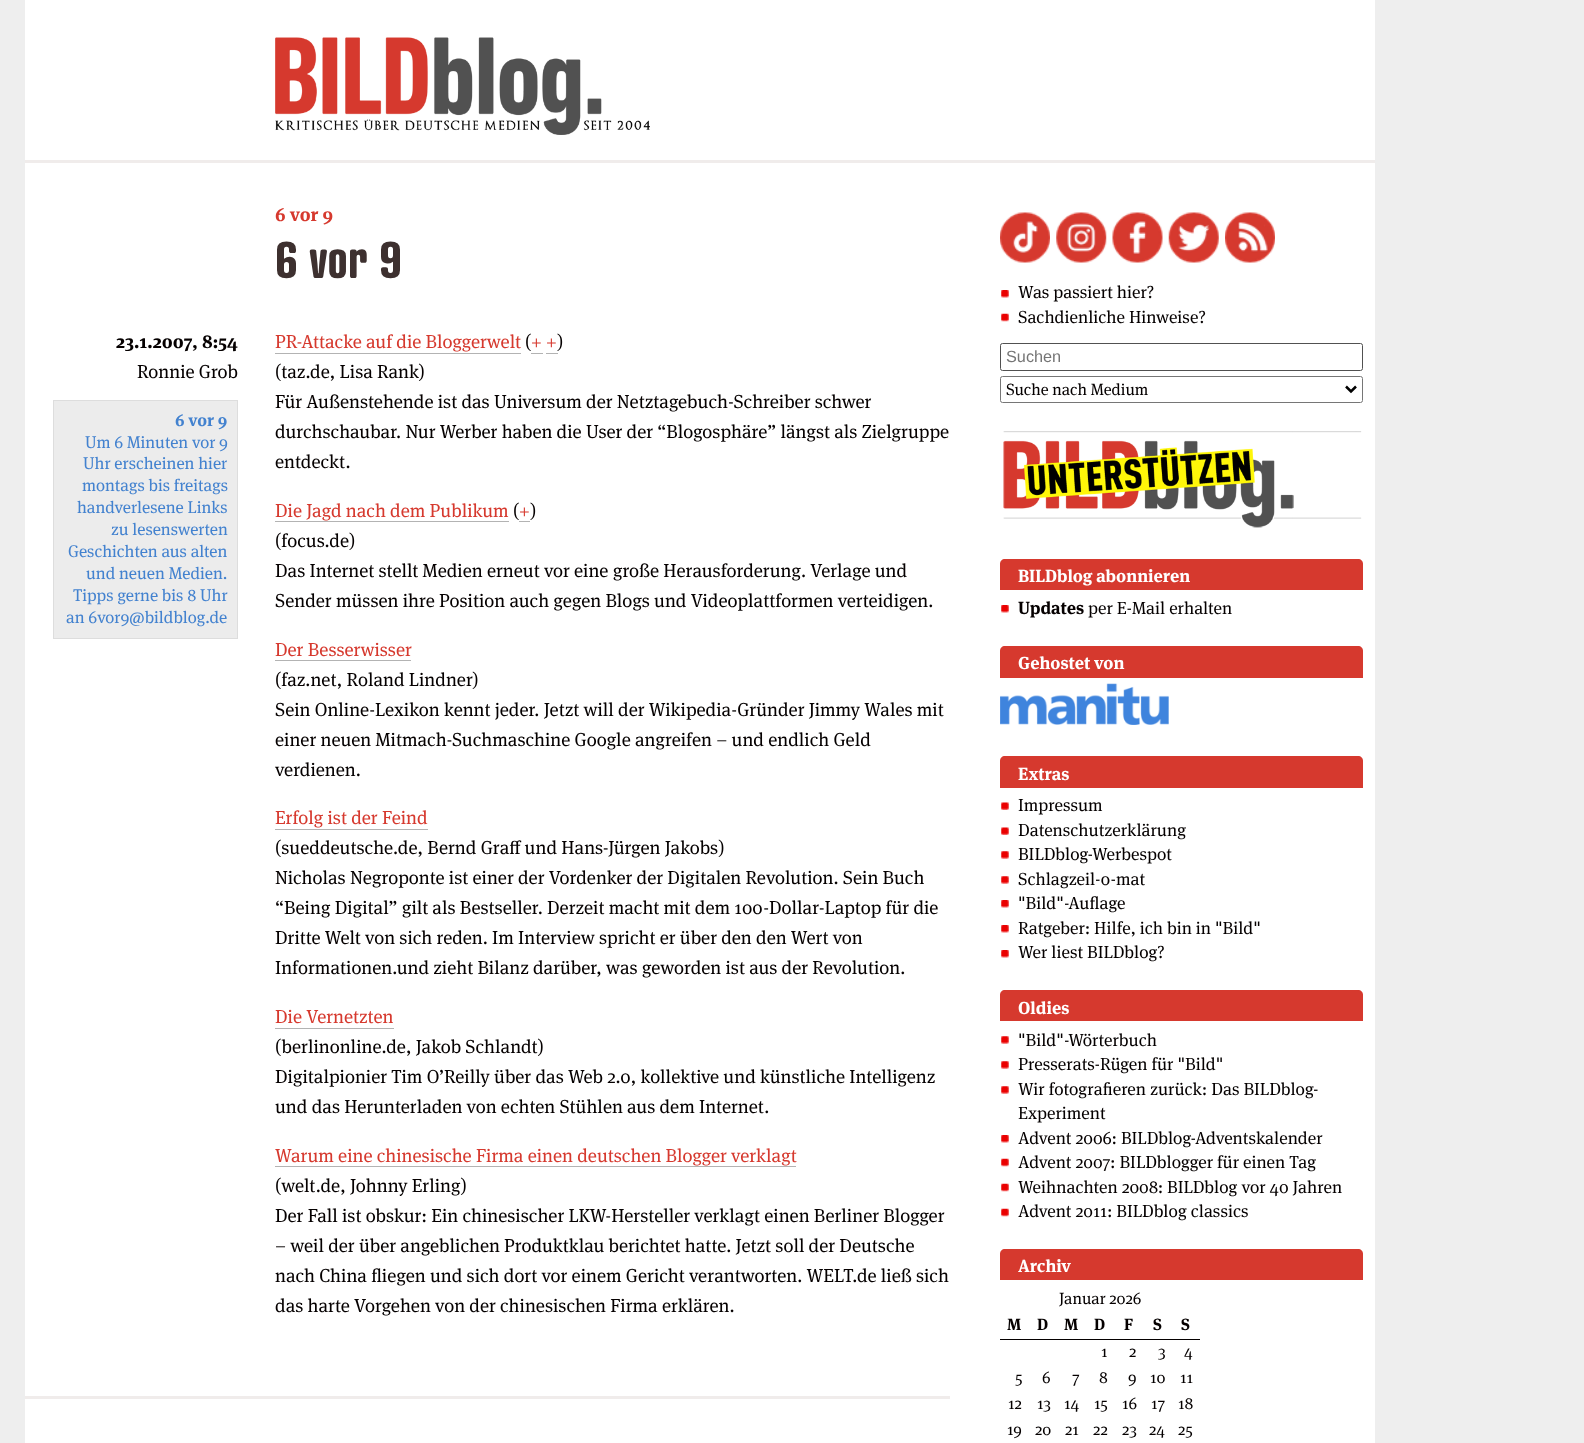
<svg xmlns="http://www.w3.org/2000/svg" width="1584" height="1443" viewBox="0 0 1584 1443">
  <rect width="100%" height="100%" fill="rgb(238,238,238)"/>
  <rect x="25" y="0" width="1350" height="1443" fill="rgb(255,255,255)"/>
  <image x="275" y="37" width="375" height="98" href="pic1.png"/>
  <rect x="25" y="160" width="1350" height="3" fill="rgb(240,236,235)"/>
  <text x="275" y="221" font-family="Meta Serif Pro" font-size="18.75" font-weight="bold" fill="rgb(214,57,46)">6 vor 9</text>
  <text x="275" y="278" font-family="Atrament" font-size="50" font-weight="bold" fill="rgb(61,48,47)">6 vor 9</text>
  <rect x="25" y="1396" width="925" height="3" fill="rgb(240,236,235)"/>
  <text x="116" y="348" font-family="Meta Serif Pro" font-size="18.75" font-weight="bold" fill="rgb(5,0,0)">23.1.2007, 8:54</text>
  <text x="137" y="378" font-family="Meta Serif Pro" font-size="18.75" fill="rgb(5,0,0)">Ronnie Grob</text>
  <rect x="53.5" y="400.5" width="184" height="238" fill="rgb(236,236,236)" stroke="rgb(221,221,221)"/>
  <text x="175" y="426" font-family="Meta Serif Pro" font-size="16.9" font-weight="bold" fill="rgb(67,130,207)">6 vor 9</text>
  <g font-family="Meta Serif Pro" font-size="16.9" fill="rgb(67,130,207)">
    <text x="85" y="448">Um 6 Minuten vor 9</text>
    <text x="83" y="469">Uhr erscheinen hier</text>
    <text x="82" y="491">montags bis freitags</text>
    <text x="77" y="513">handverlesene Links</text>
    <text x="111" y="535">zu lesenswerten</text>
    <text x="68" y="557">Geschichten aus alten</text>
    <text x="86" y="579">und neuen Medien.</text>
    <text x="73" y="601">Tipps gerne bis 8 Uhr</text>
    <text x="66" y="623">an 6vor9@bildblog.de</text>
  </g>
  <text x="275" y="348" font-family="Meta Serif Pro" font-size="18.75" fill="rgb(214,57,46)">PR-Attacke auf die Bloggerwelt</text>
  <rect x="275" y="353" width="246" height="1" fill="rgb(179,179,179)"/>
  <text x="525" y="348" font-family="Meta Serif Pro" font-size="18.75" fill="rgb(5,0,0)">(</text>
  <text x="531" y="348" font-family="Meta Serif Pro" font-size="18.75" fill="rgb(214,57,46)">+ +</text>
  <rect x="531" y="353" width="12" height="1" fill="rgb(179,179,179)"/>
  <text x="557" y="348" font-family="Meta Serif Pro" font-size="18.75" fill="rgb(5,0,0)">)</text>
  <rect x="546" y="353" width="12" height="1" fill="rgb(179,179,179)"/>
  <g font-family="Meta Serif Pro" font-size="18.75" fill="rgb(5,0,0)">
    <text>
      <tspan x="275" y="378">(taz.de, Lisa Rank)</tspan>
      <tspan x="275" y="408">Für Außenstehende ist das Universum der Netztagebuch-Schreiber schwer</tspan>
      <tspan x="275" y="438">durchschaubar. Nur Werber haben die User der “Blogosphäre” längst als Zielgruppe</tspan>
      <tspan x="275" y="468">entdeckt.</tspan>
    </text>
  </g>
  <text x="275" y="517" font-family="Meta Serif Pro" font-size="18.75" fill="rgb(214,57,46)">Die Jagd nach dem Publikum</text>
  <rect x="275" y="521" width="234" height="1" fill="rgb(179,179,179)"/>
  <text x="513" y="517" font-family="Meta Serif Pro" font-size="18.75" fill="rgb(5,0,0)">(</text>
  <text x="519" y="517" font-family="Meta Serif Pro" font-size="18.75" fill="rgb(214,57,46)">+</text>
  <rect x="519" y="521" width="11" height="1" fill="rgb(179,179,179)"/>
  <g font-family="Meta Serif Pro" font-size="18.75" fill="rgb(5,0,0)">
    <text x="530" y="517">)</text>
    <text>
      <tspan x="275" y="547">(focus.de)</tspan>
      <tspan x="275" y="577">Das Internet stellt Medien erneut vor eine große Herausforderung. Verlage und</tspan>
      <tspan x="275" y="607">Sender müssen ihre Position auch gegen Blogs und Videoplattformen verteidigen.</tspan>
    </text>
  </g>
  <text x="275" y="656" font-family="Meta Serif Pro" font-size="18.75" fill="rgb(214,57,46)">Der Besserwisser</text>
  <rect x="275" y="660" width="136" height="1" fill="rgb(179,179,179)"/>
  <g font-family="Meta Serif Pro" font-size="18.75" fill="rgb(5,0,0)">
    <text>
      <tspan x="275" y="686">(faz.net, Roland Lindner)</tspan>
      <tspan x="275" y="716">Sein Online-Lexikon kennt jeder. Jetzt will der Wikipedia-Gründer Jimmy Wales mit</tspan>
      <tspan x="275" y="746">einer neuen Mitmach-Suchmaschine Google angreifen – und endlich Geld</tspan>
      <tspan x="275" y="776">verdienen.</tspan>
    </text>
  </g>
  <text x="275" y="824" font-family="Meta Serif Pro" font-size="18.75" fill="rgb(214,57,46)">Erfolg ist der Feind</text>
  <rect x="275" y="829" width="153" height="1" fill="rgb(179,179,179)"/>
  <g font-family="Meta Serif Pro" font-size="18.75" fill="rgb(5,0,0)">
    <text>
      <tspan x="275" y="854">(sueddeutsche.de, Bernd Graff und Hans-Jürgen Jakobs)</tspan>
      <tspan x="275" y="884">Nicholas Negroponte ist einer der Vordenker der Digitalen Revolution. Sein Buch</tspan>
      <tspan x="275" y="914">“Being Digital” gilt als Bestseller. Derzeit macht mit dem 100-Dollar-Laptop für die</tspan>
      <tspan x="275" y="944">Dritte Welt von sich reden. Im Interview spricht er über den den Wert von</tspan>
      <tspan x="275" y="974">Informationen.und zieht Bilanz darüber, was geworden ist aus der Revolution.</tspan>
    </text>
  </g>
  <text x="275" y="1023" font-family="Meta Serif Pro" font-size="18.75" fill="rgb(214,57,46)">Die Vernetzten</text>
  <rect x="275" y="1028" width="119" height="1" fill="rgb(179,179,179)"/>
  <g font-family="Meta Serif Pro" font-size="18.75" fill="rgb(5,0,0)">
    <text>
      <tspan x="275" y="1053">(berlinonline.de, Jakob Schlandt)</tspan>
      <tspan x="275" y="1083">Digitalpionier Tim O’Reilly über das Web 2.0, kollektive und künstliche Intelligenz</tspan>
      <tspan x="275" y="1113">und das Herunterladen von echten Stühlen aus dem Internet.</tspan>
    </text>
  </g>
  <text x="275" y="1162" font-family="Meta Serif Pro" font-size="18.75" fill="rgb(214,57,46)">Warum eine chinesische Firma einen deutschen Blogger verklagt</text>
  <rect x="275" y="1166" width="521" height="1" fill="rgb(179,179,179)"/>
  <g font-family="Meta Serif Pro" font-size="18.75" fill="rgb(5,0,0)">
    <text>
      <tspan x="275" y="1192">(welt.de, Johnny Erling)</tspan>
      <tspan x="275" y="1222">Der Fall ist obskur: Ein chinesischer LKW-Hersteller verklagt einen Berliner Blogger</tspan>
      <tspan x="275" y="1252">– weil der über angeblichen Produktklau berichtet hatte. Jetzt soll der Deutsche</tspan>
      <tspan x="275" y="1282">nach China fliegen und sich dort vor einem Gericht verantworten. WELT.de ließ sich</tspan>
      <tspan x="275" y="1312">das harte Vorgehen von der chinesischen Firma erklären.</tspan>
    </text>
  </g>
  <image x="1000" y="212" width="50" height="51" href="pic2.png"/>
  <image x="1056" y="212" width="51" height="51" href="pic3.png"/>
  <image x="1112" y="212" width="51" height="51" href="pic4.png"/>
  <image x="1168" y="212" width="51" height="51" href="pic5.png"/>
  <image x="1225" y="212" width="50" height="51" href="pic6.png"/>
  <image x="1001" y="290" width="8" height="8" href="pic7.png"/>
  <text x="1018" y="298" font-family="Meta Serif Pro" font-size="17.5" fill="rgb(5,0,0)">Was passiert hier?</text>
  <image x="1001" y="313" width="8" height="9" href="pic8.png"/>
  <text x="1018" y="323" font-family="Meta Serif Pro" font-size="17.5" fill="rgb(5,0,0)">Sachdienliche Hinweise?</text>
  <rect x="1000.5" y="343.5" width="362" height="27" rx="2" fill="none" stroke="rgb(81,81,81)"/>
  <text x="1006" y="362" font-family="Liberation Sans" font-size="16.25" fill="rgb(117,117,117)">Suchen</text>
  <rect x="1000.5" y="376.5" width="362" height="26" rx="2" fill="none" stroke="rgb(118,118,118)"/>
  <path d="M1346 386.5L1351 391.5L1356 386.5" fill="none" stroke="rgb(0,0,0)" stroke-width="2.5"/>
  <text x="1006" y="395" font-family="Meta Serif Pro" font-size="16.25" fill="rgb(5,0,0)">Suche nach Medium</text>
  <image x="1003" y="431" width="359" height="97" href="pic9.png"/>
  <path d="M1005 559H1358C1361 559 1363 561 1363 564V590H1000V564C1000 561 1002 559 1005 559Z" fill="rgb(214,57,46)"/>
  <text x="1018" y="582" font-family="Meta Serif Pro" font-size="17.5" font-weight="bold" fill="rgb(255,255,255)">BILDblog abonnieren</text>
  <image x="1001" y="605" width="8" height="8" href="pic7.png"/>
  <text x="1018" y="614" font-family="Meta Serif Pro" font-size="17.5" font-weight="bold" fill="rgb(5,0,0)">Updates</text>
  <text x="1088" y="614" font-family="Meta Serif Pro" font-size="17.5" fill="rgb(5,0,0)">per E-Mail erhalten</text>
  <path d="M1005 646H1358C1361 646 1363 648 1363 651V678H1000V651C1000 648 1002 646 1005 646Z" fill="rgb(214,57,46)"/>
  <text x="1018" y="669" font-family="Meta Serif Pro" font-size="17.5" font-weight="bold" fill="rgb(255,255,255)">Gehostet von</text>
  <image x="1000" y="683" width="169" height="42" href="pic10.png"/>
  <path d="M1005 756H1358C1361 756 1363 758 1363 761V788H1000V761C1000 758 1002 756 1005 756Z" fill="rgb(214,57,46)"/>
  <text x="1018" y="780" font-family="Meta Serif Pro" font-size="17.5" font-weight="bold" fill="rgb(255,255,255)">Extras</text>
  <image x="1001" y="802" width="8" height="8" href="pic11.png"/>
  <text x="1018" y="811" font-family="Meta Serif Pro" font-size="17.5" fill="rgb(5,0,0)">Impressum</text>
  <image x="1001" y="827" width="8" height="8" href="pic11.png"/>
  <text x="1018" y="836" font-family="Meta Serif Pro" font-size="17.5" fill="rgb(5,0,0)">Datenschutzerklärung</text>
  <image x="1001" y="851" width="8" height="8" href="pic12.png"/>
  <text x="1018" y="860" font-family="Meta Serif Pro" font-size="17.5" fill="rgb(5,0,0)">BILDblog-Werbespot</text>
  <image x="1001" y="876" width="8" height="8" href="pic12.png"/>
  <text x="1018" y="885" font-family="Meta Serif Pro" font-size="17.5" fill="rgb(5,0,0)">Schlagzeil-o-mat</text>
  <image x="1001" y="900" width="8" height="8" href="pic7.png"/>
  <text x="1018" y="909" font-family="Meta Serif Pro" font-size="17.5" fill="rgb(5,0,0)">"Bild"-Auflage</text>
  <image x="1001" y="925" width="8" height="8" href="pic7.png"/>
  <text x="1018" y="934" font-family="Meta Serif Pro" font-size="17.5" fill="rgb(5,0,0)">Ratgeber: Hilfe, ich bin in "Bild"</text>
  <image x="1001" y="950" width="8" height="8" href="pic7.png"/>
  <text x="1018" y="958" font-family="Meta Serif Pro" font-size="17.5" fill="rgb(5,0,0)">Wer liest BILDblog?</text>
  <path d="M1005 990H1358C1361 990 1363 992 1363 995V1021H1000V995C1000 992 1002 990 1005 990Z" fill="rgb(214,57,46)"/>
  <text x="1018" y="1014" font-family="Meta Serif Pro" font-size="17.5" font-weight="bold" fill="rgb(255,255,255)">Oldies</text>
  <image x="1001" y="1036" width="8" height="8" href="pic12.png"/>
  <text x="1018" y="1046" font-family="Meta Serif Pro" font-size="17.5" fill="rgb(5,0,0)">"Bild"-Wörterbuch</text>
  <image x="1001" y="1061" width="8" height="8" href="pic12.png"/>
  <text x="1018" y="1070" font-family="Meta Serif Pro" font-size="17.5" fill="rgb(5,0,0)">Presserats-Rügen für "Bild"</text>
  <image x="1001" y="1086" width="8" height="8" href="pic12.png"/>
  <g font-family="Meta Serif Pro" font-size="17.5" fill="rgb(5,0,0)">
    <text>
      <tspan x="1018" y="1095">Wir fotografieren zurück: Das BILDblog-</tspan>
      <tspan x="1018" y="1119">Experiment</tspan>
    </text>
  </g>
  <image x="1001" y="1135" width="8" height="8" href="pic7.png"/>
  <text x="1018" y="1144" font-family="Meta Serif Pro" font-size="17.5" fill="rgb(5,0,0)">Advent 2006: BILDblog-Adventskalender</text>
  <image x="1001" y="1158" width="8" height="9" href="pic8.png"/>
  <text x="1018" y="1168" font-family="Meta Serif Pro" font-size="17.5" fill="rgb(5,0,0)">Advent 2007: BILDblogger für einen Tag</text>
  <image x="1001" y="1183" width="8" height="9" href="pic8.png"/>
  <text x="1018" y="1193" font-family="Meta Serif Pro" font-size="17.5" fill="rgb(5,0,0)">Weihnachten 2008: BILDblog vor 40 Jahren</text>
  <image x="1001" y="1208" width="8" height="9" href="pic8.png"/>
  <text x="1018" y="1217" font-family="Meta Serif Pro" font-size="17.5" fill="rgb(5,0,0)">Advent 2011: BILDblog classics</text>
  <path d="M1005 1249H1358C1361 1249 1363 1251 1363 1254V1280H1000V1254C1000 1251 1002 1249 1005 1249Z" fill="rgb(214,57,46)"/>
  <text x="1018" y="1272" font-family="Meta Serif Pro" font-size="17.5" font-weight="bold" fill="rgb(255,255,255)">Archiv</text>
  <text x="1059" y="1304" font-family="Meta Serif Pro" font-size="16.25" fill="rgb(5,0,0)">Januar 2026</text>
  <g font-family="Meta Serif Pro" font-size="16.25" font-weight="bold" fill="rgb(5,0,0)">
    <text x="1007" y="1330">M</text>
    <text x="1037" y="1330">D</text>
    <text x="1064" y="1330">M</text>
    <text x="1094" y="1330">D</text>
    <text x="1124" y="1330">F</text>
    <text x="1153" y="1330">S</text>
  </g>
  <rect x="1000" y="1339" width="200" height="1" fill="rgb(5,0,0)"/>
  <text x="1181" y="1330" font-family="Meta Serif Pro" font-size="16.25" font-weight="bold" fill="rgb(5,0,0)">S</text>
  <g font-family="Meta Serif Pro" font-size="16.25" fill="rgb(5,0,0)">
    <text x="1101" y="1357">1</text>
    <text x="1129" y="1357">2</text>
    <text x="1158" y="1357">3</text>
    <text x="1184" y="1357">4</text>
    <text x="1015" y="1383">5</text>
    <text x="1042" y="1383">6</text>
    <text x="1072" y="1383">7</text>
    <text x="1099" y="1383">8</text>
    <text x="1128" y="1383">9</text>
    <text x="1150" y="1383">10</text>
    <text x="1180" y="1383">11</text>
    <text x="1008" y="1409">12</text>
    <text x="1037" y="1409">13</text>
    <text x="1064" y="1409">14</text>
    <text x="1094" y="1409">15</text>
    <text x="1122" y="1409">16</text>
    <text x="1151" y="1409">17</text>
    <text x="1178" y="1409">18</text>
    <text x="1007" y="1435">19</text>
    <text x="1035" y="1435">20</text>
    <text x="1065" y="1435">21</text>
    <text x="1093" y="1435">22</text>
    <text x="1122" y="1435">23</text>
    <text x="1149" y="1435">24</text>
    <text x="1178" y="1435">25</text>
  </g>
</svg>
